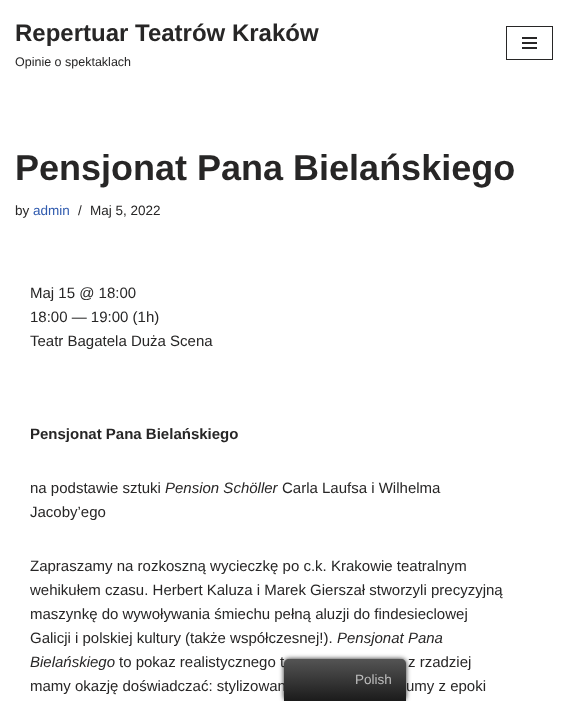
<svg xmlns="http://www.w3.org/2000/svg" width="568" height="701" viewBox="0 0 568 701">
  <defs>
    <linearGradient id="g1" gradientUnits="userSpaceOnUse" x1="345" y1="701" x2="345" y2="659"><stop offset="0" stop-color="rgb(27,27,27)"/><stop offset="1" stop-color="rgb(84,84,84)"/></linearGradient>
  </defs>
  <rect width="100%" height="100%" fill="rgb(255,255,255)"/>
  <text x="15" y="41" font-family="Liberation Sans" font-size="24" font-weight="bold" fill="rgb(39,38,38)">Repertuar Teatrów Kraków</text>
  <text x="15" y="66" font-family="Liberation Sans" font-size="12.5" fill="rgb(39,38,38)">Opinie o spektaklach</text>
  <rect x="506.5" y="26.5" width="46" height="33" fill="none" stroke="rgb(39,38,38)"/>
  <rect x="522" y="37" width="15" height="2" fill="rgb(39,38,38)"/>
  <rect x="522" y="42" width="15" height="2" fill="rgb(39,38,38)"/>
  <rect x="522" y="47" width="15" height="2" fill="rgb(39,38,38)"/>
  <text x="15" y="180" font-family="Liberation Sans" font-size="36" font-weight="bold" fill="rgb(39,38,38)">Pensjonat Pana Bielańskiego</text>
  <text x="15" y="215" font-family="Liberation Sans" font-size="13.5" fill="rgb(39,38,38)">by</text>
  <text x="33" y="215" font-family="Liberation Sans" font-size="13.5" fill="rgb(47,90,174)">admin</text>
  <g font-family="Liberation Sans" font-size="13.5" fill="rgb(39,38,38)">
    <text x="78" y="215">/</text>
    <text x="90" y="215">Maj 5, 2022</text>
  </g>
  <g font-family="Liberation Sans" font-size="15" fill="rgb(39,38,38)">
    <text>
      <tspan x="30" y="298">Maj 15 @ 18:00</tspan>
      <tspan x="30" y="322">18:00 — 19:00 (1h)</tspan>
      <tspan x="30" y="346">Teatr Bagatela Duża Scena</tspan>
    </text>
  </g>
  <text x="30" y="439" font-family="Liberation Sans" font-size="15" font-weight="bold" fill="rgb(39,38,38)">Pensjonat Pana Bielańskiego</text>
  <text x="30" y="493" font-family="Liberation Sans" font-size="15" fill="rgb(39,38,38)">na podstawie sztuki</text>
  <text x="165" y="493" font-family="Liberation Sans" font-size="15" font-style="italic" fill="rgb(39,38,38)">Pension Schöller</text>
  <g font-family="Liberation Sans" font-size="15" fill="rgb(39,38,38)">
    <text x="282" y="493">Carla Laufsa i Wilhelma</text>
    <text x="30" y="517">Jacoby’ego</text>
    <text>
      <tspan x="30" y="571">Zapraszamy na rozkoszną wycieczkę po c.k. Krakowie teatralnym</tspan>
      <tspan x="30" y="595">wehikułem czasu. Herbert Kaluza i Marek Gierszał stworzyli precyzyjną</tspan>
      <tspan x="30" y="619">maszynkę do wywoływania śmiechu pełną aluzji do findesieclowej</tspan>
      <tspan x="30" y="643">Galicji i polskiej kultury (także współczesnej!).</tspan>
    </text>
  </g>
  <g font-family="Liberation Sans" font-size="15" font-style="italic" fill="rgb(39,38,38)">
    <text x="337" y="643">Pensjonat Pana</text>
    <text x="30" y="667">Bielańskiego</text>
  </g>
  <g font-family="Liberation Sans" font-size="15" fill="rgb(39,38,38)">
    <text x="119" y="667">to pokaz realistycznego t</text>
    <text x="408" y="667">z rzadziej</text>
    <text x="30" y="691">mamy okazję doświadczać: stylizowan</text>
    <text x="406" y="691">umy z epoki</text>
  </g>
  <rect x="284" y="659" width="122" height="42" rx="5" fill="rgb(33,33,33)" filter="blur(2.5px)"/>
  <path d="M289 659H401C404 659 406 661 406 664V701H284V664C284 661 286 659 289 659Z" fill="url(#g1)"/>
  <text x="355" y="684" font-family="Liberation Sans" font-size="13.5" fill="rgb(189,189,189)">Polish</text>
</svg>
